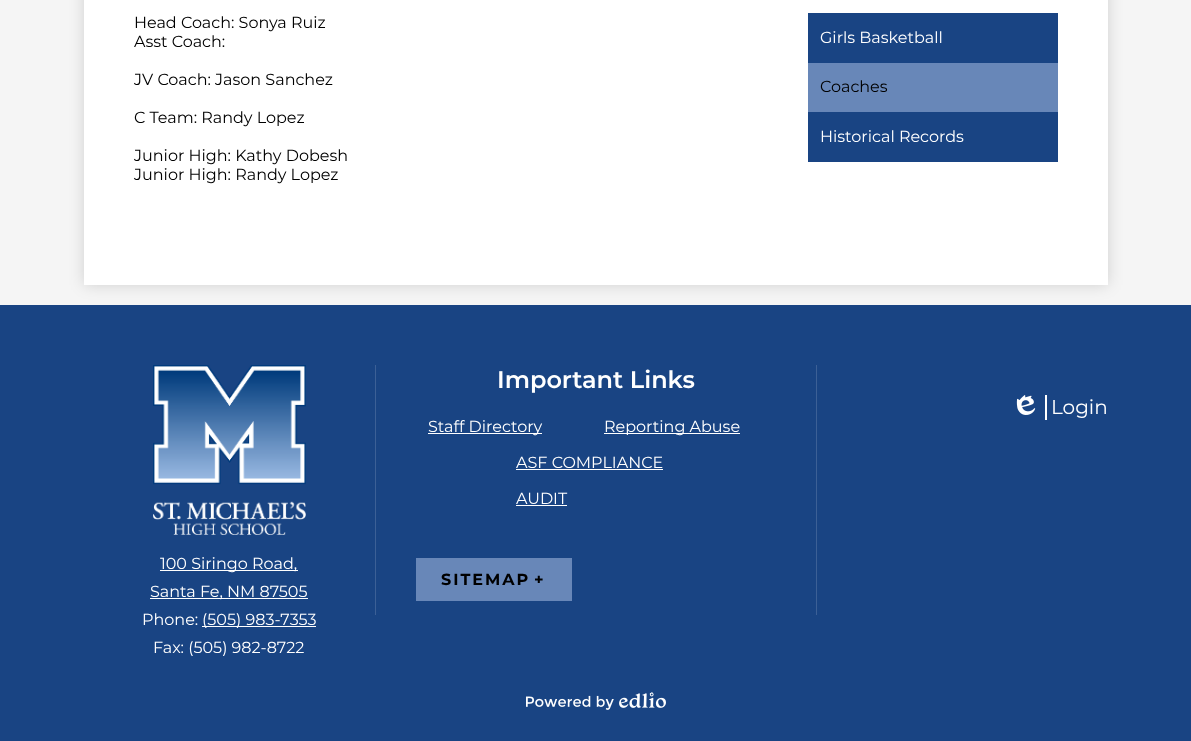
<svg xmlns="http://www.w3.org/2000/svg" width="1191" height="741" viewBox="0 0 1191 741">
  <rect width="100%" height="100%" fill="rgb(245,245,245)"/>
  <rect x="0" y="305" width="1191" height="436" fill="rgb(25,68,131)"/>
  <rect x="84" y="-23" width="1024" height="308" fill="rgba(0,0,0,0.15)" filter="blur(7.5px)"/>
  <rect x="84" y="0" width="1024" height="285" fill="rgb(255,255,255)"/>
  <g font-family="Montserrat" font-size="16" fill="rgb(0,0,0)">
    <text>
      <tspan x="134" y="28">Head Coach: Sonya Ruiz</tspan>
      <tspan x="134" y="47">Asst Coach:</tspan>
    </text>
    <text x="134" y="85">JV Coach: Jason Sanchez</text>
    <text x="134" y="123">C Team: Randy Lopez</text>
    <text>
      <tspan x="134" y="161">Junior High: Kathy Dobesh</tspan>
      <tspan x="134" y="180">Junior High: Randy Lopez</tspan>
    </text>
  </g>
  <rect x="808" y="13" width="250" height="149" fill="rgb(25,68,131)"/>
  <text x="820" y="43" font-family="Montserrat" font-size="16" fill="rgb(255,255,255)">Girls Basketball</text>
  <rect x="808" y="63" width="250" height="49" fill="rgb(104,135,184)"/>
  <text x="820" y="92" font-family="Montserrat" font-size="16" fill="rgb(0,0,0)">Coaches</text>
  <text x="820" y="142" font-family="Montserrat" font-size="16" fill="rgb(255,255,255)">Historical Records</text>
  <rect x="816" y="365" width="1" height="250" fill="rgb(60,96,150)"/>
  <text x="497" y="388" font-family="Montserrat" font-size="24" font-weight="600" fill="rgb(255,255,255)">Important Links</text>
  <rect x="428" y="433" width="114" height="1" fill="rgb(255,255,255)"/>
  <text x="428" y="432" font-family="Montserrat" font-size="16" fill="rgb(255,255,255)">Staff Directory</text>
  <rect x="604" y="433" width="136" height="1" fill="rgb(255,255,255)"/>
  <g font-family="Montserrat" font-size="16" fill="rgb(255,255,255)">
    <text x="604" y="432">Reporting Abuse</text>
    <text x="516" y="468">ASF COMPLIANCE</text>
  </g>
  <rect x="516" y="469" width="147" height="1" fill="rgb(255,255,255)"/>
  <text x="516" y="504" font-family="Montserrat" font-size="16" fill="rgb(255,255,255)">AUDIT</text>
  <rect x="516" y="505" width="51" height="1" fill="rgb(255,255,255)"/>
  <rect x="1045" y="395" width="2" height="25" fill="rgb(255,255,255)"/>
  <image x="1016" y="395" width="20" height="20" href="pic1.png"/>
  <text x="1051" y="414" font-family="Montserrat" font-size="20" fill="rgb(255,255,255)">Login</text>
  <rect x="375" y="365" width="1" height="250" fill="rgb(60,96,150)"/>
  <image x="153" y="365" width="153" height="170" href="pic2.png"/>
  <rect x="160" y="570" width="138" height="1" fill="rgb(255,255,255)"/>
  <text x="160" y="569" font-family="Montserrat" font-size="16" fill="rgb(255,255,255)">100 Siringo Road,</text>
  <rect x="150" y="598" width="158" height="1" fill="rgb(255,255,255)"/>
  <g font-family="Montserrat" font-size="16" fill="rgb(255,255,255)">
    <text x="150" y="597">Santa Fe, NM 87505</text>
    <text x="142" y="625">Phone:</text>
  </g>
  <rect x="202" y="626" width="114" height="1" fill="rgb(255,255,255)"/>
  <g font-family="Montserrat" font-size="16" fill="rgb(255,255,255)">
    <text x="202" y="625">(505) 983-7353</text>
    <text x="153" y="653">Fax: (505) 982-8722</text>
  </g>
  <rect x="416" y="558" width="156" height="43" fill="rgb(104,135,184)"/>
  <g font-family="Montserrat" font-size="16" font-weight="bold" letter-spacing="2" fill="rgb(0,0,0)">
    <text x="441" y="585">SITEMAP</text>
    <text x="534" y="585">+</text>
  </g>
  <image x="526" y="692" width="140" height="18" href="pic3.png"/>
</svg>
